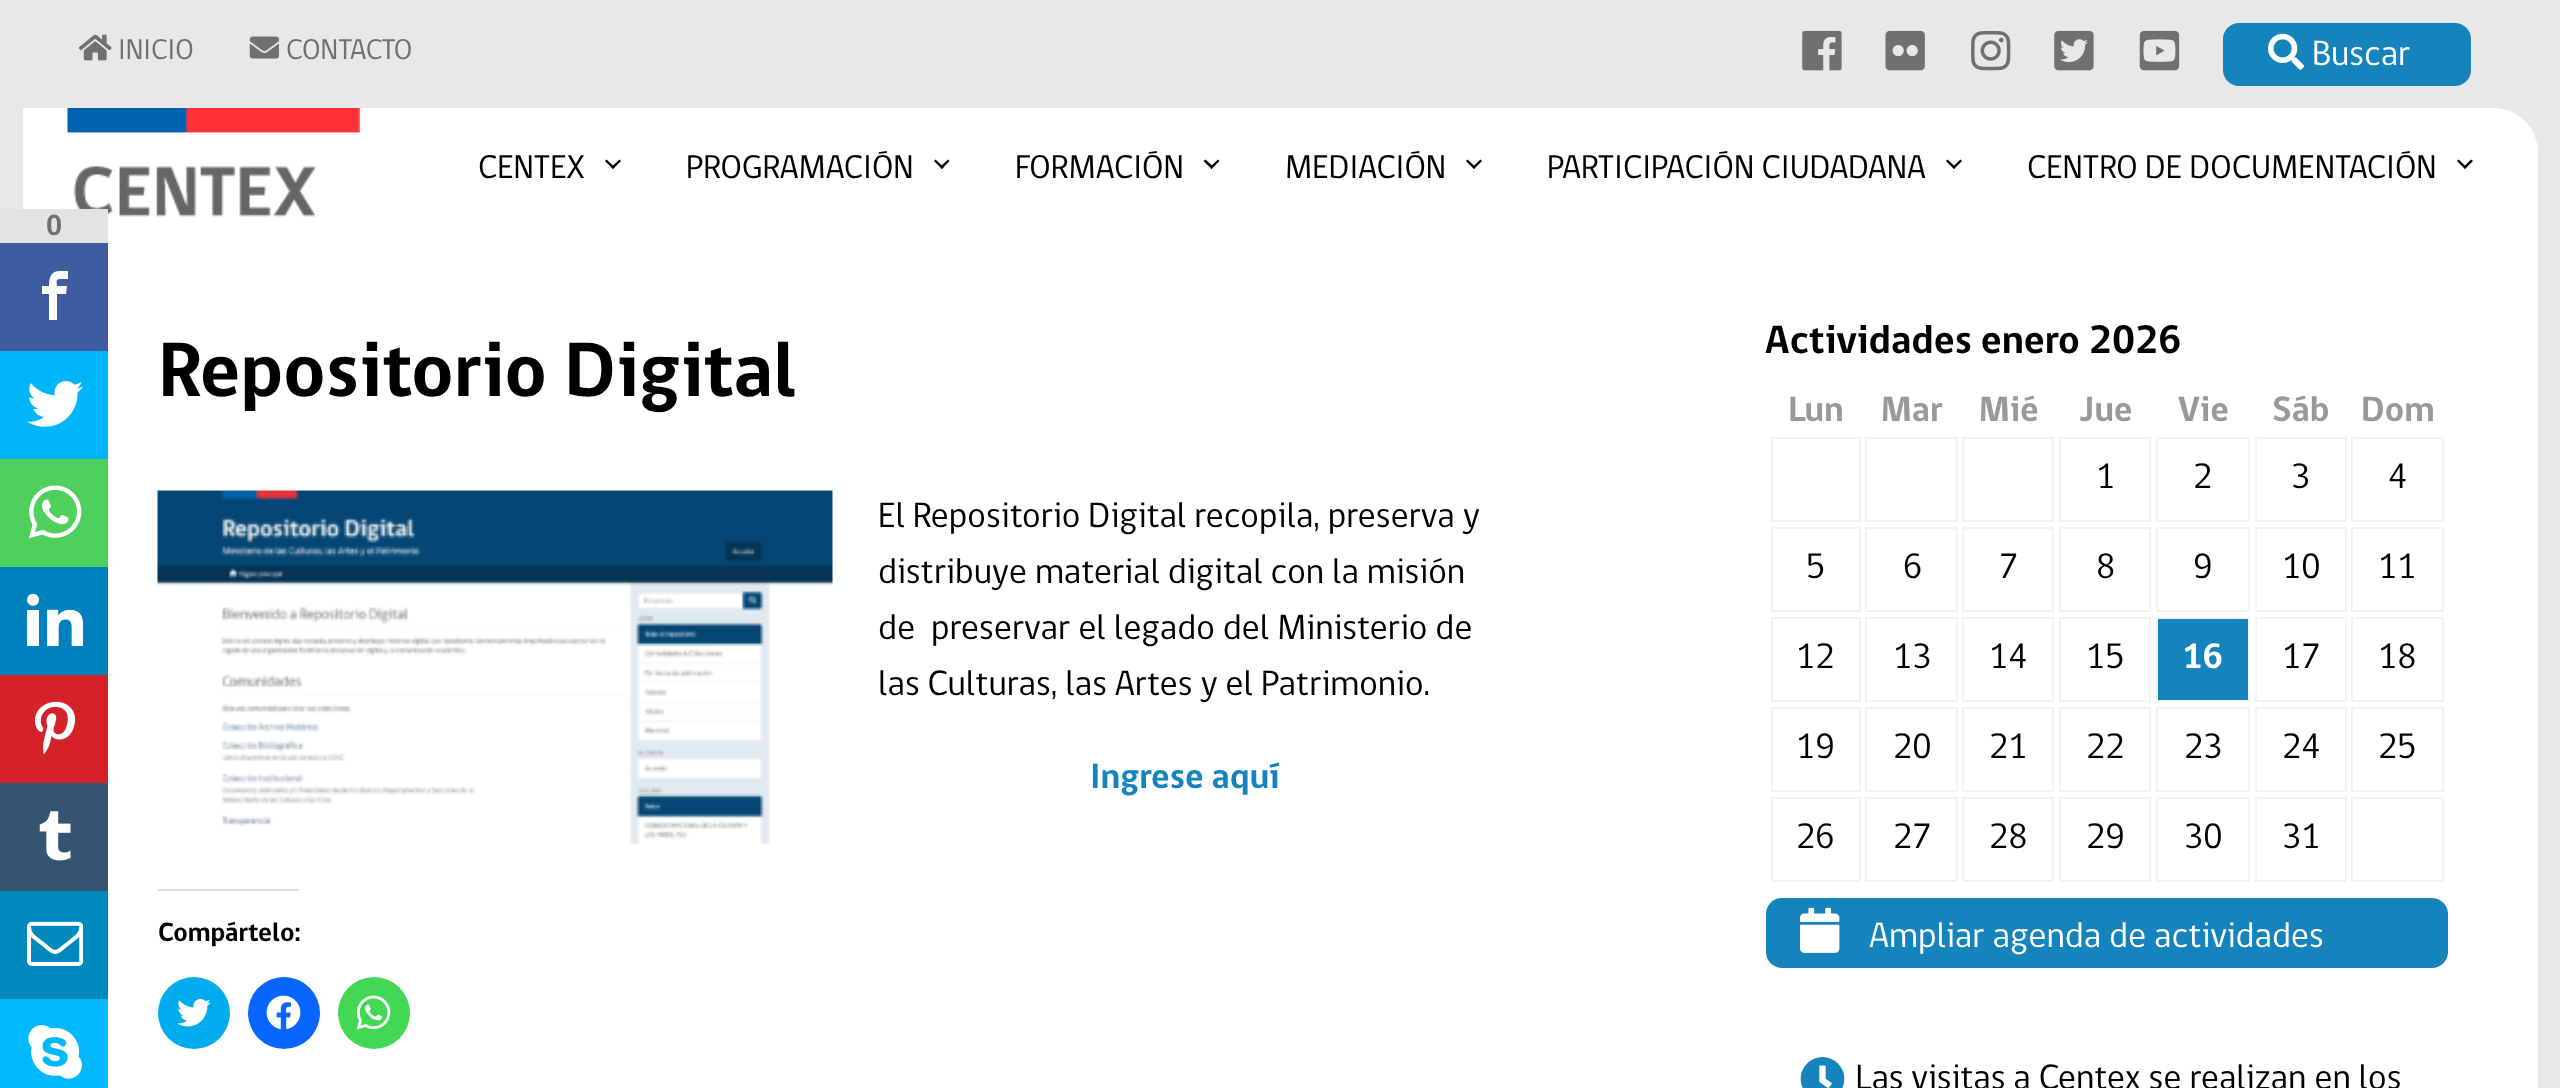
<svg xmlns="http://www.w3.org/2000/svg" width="2560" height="1088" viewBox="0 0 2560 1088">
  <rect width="100%" height="100%" fill="rgb(232,232,232)"/>
  <path d="M23 108H2493C2518 108 2538 128 2538 153V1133H23Z" fill="rgb(255,255,255)"/>
  <image x="67" y="108" width="293" height="109" href="pic16.png"/>
  <rect x="0" y="209" width="108" height="34" fill="rgb(227,227,227)"/>
  <text x="46" y="235" font-family="Liberation Sans" font-size="29.25" font-weight="bold" fill="rgb(112,112,112)">0</text>
  <rect x="0" y="243" width="108" height="108" fill="rgb(62,93,160)"/>
  <path d="M59 271C50 271 49 280 49 286H42V294H49V320H57V294H66L67 286H57C57 282 55 279 60 279H68V271Z" fill="rgb(255,255,255)"/>
  <rect x="0" y="351" width="108" height="108" fill="rgb(0,181,249)"/>
  <image x="27" y="381" width="56" height="46" href="pic1.png"/>
  <rect x="0" y="459" width="108" height="108" fill="rgb(79,207,91)"/>
  <image x="29" y="485" width="53" height="54" href="pic2.png"/>
  <rect x="0" y="567" width="108" height="108" fill="rgb(0,129,191)"/>
  <image x="27" y="593" width="56" height="53" href="pic3.png"/>
  <rect x="0" y="675" width="108" height="108" fill="rgb(213,34,41)"/>
  <image x="34" y="701" width="42" height="53" href="pic4.png"/>
  <rect x="0" y="783" width="108" height="108" fill="rgb(53,84,114)"/>
  <image x="39" y="811" width="32" height="50" href="pic5.png"/>
  <rect x="0" y="891" width="108" height="108" fill="rgb(0,137,188)"/>
  <image x="27" y="921" width="56" height="45" href="pic6.png"/>
  <rect x="0" y="999" width="108" height="89" fill="rgb(0,184,252)"/>
  <image x="28" y="1025" width="54" height="54" href="pic7.png"/>
  <image x="78" y="34" width="34" height="27" href="pic8.png"/>
  <text x="118" y="59" font-family="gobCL" font-size="29.25" fill="rgb(112,112,112)">INICIO</text>
  <image x="249" y="36" width="30" height="23" href="pic9.png"/>
  <text x="286" y="59" font-family="gobCL" font-size="29.25" fill="rgb(112,112,112)">CONTACTO</text>
  <image x="1802" y="30" width="40" height="41" href="pic10.png"/>
  <image x="1885" y="30" width="40" height="41" href="pic11.png"/>
  <image x="1971" y="30" width="40" height="41" href="pic12.png"/>
  <image x="2054" y="30" width="40" height="41" href="pic13.png"/>
  <image x="2139" y="30" width="41" height="41" href="pic14.png"/>
  <rect x="2223" y="23" width="248" height="63" rx="16" fill="rgb(21,132,189)"/>
  <image x="2268" y="33" width="36" height="37" href="pic15.png"/>
  <text x="2312" y="65" font-family="gobCL" font-size="36" fill="rgb(255,255,255)">Buscar</text>
  <text x="478" y="178" font-family="gobCL" font-size="33.75" fill="rgb(0,0,0)">CENTEX</text>
  <path d="M619.5 159.5L621 161L613 169L611.5 167Z" fill="rgb(0,0,0)"/>
  <path d="M606.5 159.5L614.5 167L613 169L605 161Z" fill="rgb(0,0,0)"/>
  <text x="686" y="178" font-family="gobCL" font-size="33.75" fill="rgb(0,0,0)">PROGRAMACIÓN</text>
  <path d="M948 159.5L949.5 161L942 169L940 167Z" fill="rgb(0,0,0)"/>
  <path d="M935.5 159.5L943.5 167L942 169L934 161Z" fill="rgb(0,0,0)"/>
  <text x="1015" y="178" font-family="gobCL" font-size="33.75" fill="rgb(0,0,0)">FORMACIÓN</text>
  <path d="M1218 159.5L1219.5 161L1211.5 169L1210 167Z" fill="rgb(0,0,0)"/>
  <path d="M1205.5 159.5L1213.5 167L1211.5 169L1203.5 161Z" fill="rgb(0,0,0)"/>
  <text x="1285" y="178" font-family="gobCL" font-size="33.75" fill="rgb(0,0,0)">MEDIACIÓN</text>
  <path d="M1480.5 159.5L1482 161L1474 169L1472.5 167Z" fill="rgb(0,0,0)"/>
  <path d="M1467.5 159.5L1475.5 167L1474 169L1466 161Z" fill="rgb(0,0,0)"/>
  <text x="1547" y="178" font-family="gobCL" font-size="33.75" fill="rgb(0,0,0)">PARTICIPACIÓN CIUDADANA</text>
  <path d="M1960.5 159.5L1962 161L1954 169L1952.5 167Z" fill="rgb(0,0,0)"/>
  <path d="M1947.5 159.5L1955.5 167L1954 169L1946 161Z" fill="rgb(0,0,0)"/>
  <text x="2027" y="178" font-family="gobCL" font-size="33.75" fill="rgb(0,0,0)">CENTRO DE DOCUMENTACIÓN</text>
  <path d="M2471 159.5L2473 161L2465 169L2463.5 167Z" fill="rgb(0,0,0)"/>
  <path d="M2458.5 159.5L2466.5 167L2465 169L2457 161Z" fill="rgb(0,0,0)"/>
  <text x="158" y="396" font-family="gobCL" font-size="78.75" font-weight="bold" fill="rgb(0,0,0)">Repositorio Digital</text>
  <image x="157" y="490" width="676" height="354" href="pic17.png"/>
  <g font-family="gobCL" font-size="36" fill="rgb(0,0,0)">
    <text xml:space="preserve"><tspan x="878" y="527">El Repositorio Digital recopila, preserva y</tspan><tspan x="878" y="583">distribuye material digital con la misión</tspan><tspan x="878" y="639">de  preservar el legado del Ministerio de</tspan><tspan x="878" y="695">las Culturas, las Artes y el Patrimonio.</tspan></text>
  </g>
  <text x="1090" y="788" font-family="gobCL" font-size="36" font-weight="bold" fill="rgb(21,132,189)">Ingrese aquí</text>
  <rect x="158" y="889" width="141" height="2" fill="rgb(220,220,222)"/>
  <text x="158" y="941" font-family="gobCL" font-size="27" font-weight="bold" fill="rgb(0,0,0)">Compártelo:</text>
  <circle cx="194" cy="1013" r="36" fill="rgb(0,172,238)"/>
  <image x="177" y="999" width="34" height="28" href="pic18.png"/>
  <circle cx="284" cy="1013" r="36" fill="rgb(8,102,255)"/>
  <image x="266" y="995" width="35" height="35" href="pic19.png"/>
  <circle cx="374" cy="1013" r="36" fill="rgb(67,216,84)"/>
  <image x="356" y="995" width="35" height="35" href="pic20.png"/>
  <text x="1765" y="353" font-family="gobCL" font-size="40.5" font-weight="bold" fill="rgb(0,0,0)">Actividades enero 2026</text>
  <g font-family="gobCL" font-size="36" font-weight="bold" fill="rgb(153,153,153)">
    <text x="1788" y="421">Lun</text>
    <text x="1881" y="421">Mar</text>
    <text x="1979" y="421">Mié</text>
    <text x="2079" y="421">Jue</text>
    <text x="2178" y="421">Vie</text>
    <text x="2272" y="421">Sáb</text>
    <text x="2361" y="421">Dom</text>
  </g>
  <rect x="1772" y="438" width="88" height="83" fill="none" stroke="rgb(242,242,242)" stroke-width="2"/>
  <rect x="1866" y="438" width="91" height="83" fill="none" stroke="rgb(242,242,242)" stroke-width="2"/>
  <rect x="1963" y="438" width="90" height="83" fill="none" stroke="rgb(242,242,242)" stroke-width="2"/>
  <rect x="2060" y="438" width="90" height="83" fill="none" stroke="rgb(242,242,242)" stroke-width="2"/>
  <text x="2096" y="488" font-family="gobCL" font-size="36" fill="rgb(0,0,0)">1</text>
  <rect x="2157" y="438" width="92" height="83" fill="none" stroke="rgb(242,242,242)" stroke-width="2"/>
  <text x="2193" y="488" font-family="gobCL" font-size="36" fill="rgb(0,0,0)">2</text>
  <rect x="2256" y="438" width="90" height="83" fill="none" stroke="rgb(242,242,242)" stroke-width="2"/>
  <text x="2291" y="488" font-family="gobCL" font-size="36" fill="rgb(0,0,0)">3</text>
  <rect x="2352" y="438" width="91" height="83" fill="none" stroke="rgb(242,242,242)" stroke-width="2"/>
  <text x="2388" y="488" font-family="gobCL" font-size="36" fill="rgb(0,0,0)">4</text>
  <rect x="1772" y="528" width="88" height="83" fill="none" stroke="rgb(242,242,242)" stroke-width="2"/>
  <text x="1806" y="578" font-family="gobCL" font-size="36" fill="rgb(0,0,0)">5</text>
  <rect x="1866" y="528" width="91" height="83" fill="none" stroke="rgb(242,242,242)" stroke-width="2"/>
  <text x="1903" y="578" font-family="gobCL" font-size="36" fill="rgb(0,0,0)">6</text>
  <rect x="1963" y="528" width="90" height="83" fill="none" stroke="rgb(242,242,242)" stroke-width="2"/>
  <text x="1999" y="578" font-family="gobCL" font-size="36" fill="rgb(0,0,0)">7</text>
  <rect x="2060" y="528" width="90" height="83" fill="none" stroke="rgb(242,242,242)" stroke-width="2"/>
  <text x="2096" y="578" font-family="gobCL" font-size="36" fill="rgb(0,0,0)">8</text>
  <rect x="2157" y="528" width="92" height="83" fill="none" stroke="rgb(242,242,242)" stroke-width="2"/>
  <text x="2193" y="578" font-family="gobCL" font-size="36" fill="rgb(0,0,0)">9</text>
  <rect x="2256" y="528" width="90" height="83" fill="none" stroke="rgb(242,242,242)" stroke-width="2"/>
  <text x="2282" y="578" font-family="gobCL" font-size="36" fill="rgb(0,0,0)">10</text>
  <rect x="2352" y="528" width="91" height="83" fill="none" stroke="rgb(242,242,242)" stroke-width="2"/>
  <text x="2378" y="578" font-family="gobCL" font-size="36" fill="rgb(0,0,0)">11</text>
  <rect x="1772" y="618" width="88" height="83" fill="none" stroke="rgb(242,242,242)" stroke-width="2"/>
  <text x="1796" y="668" font-family="gobCL" font-size="36" fill="rgb(0,0,0)">12</text>
  <rect x="1866" y="618" width="91" height="83" fill="none" stroke="rgb(242,242,242)" stroke-width="2"/>
  <text x="1893" y="668" font-family="gobCL" font-size="36" fill="rgb(0,0,0)">13</text>
  <rect x="1963" y="618" width="90" height="83" fill="none" stroke="rgb(242,242,242)" stroke-width="2"/>
  <text x="1989" y="668" font-family="gobCL" font-size="36" fill="rgb(0,0,0)">14</text>
  <rect x="2060" y="618" width="90" height="83" fill="none" stroke="rgb(242,242,242)" stroke-width="2"/>
  <text x="2086" y="668" font-family="gobCL" font-size="36" fill="rgb(0,0,0)">15</text>
  <rect x="2157" y="618" width="92" height="83" fill="rgb(21,132,189)" stroke="rgb(242,242,242)" stroke-width="2"/>
  <text x="2182" y="668" font-family="gobCL" font-size="36" font-weight="bold" fill="rgb(255,255,255)">16</text>
  <rect x="2256" y="618" width="90" height="83" fill="none" stroke="rgb(242,242,242)" stroke-width="2"/>
  <text x="2282" y="668" font-family="gobCL" font-size="36" fill="rgb(0,0,0)">17</text>
  <rect x="2352" y="618" width="91" height="83" fill="none" stroke="rgb(242,242,242)" stroke-width="2"/>
  <text x="2378" y="668" font-family="gobCL" font-size="36" fill="rgb(0,0,0)">18</text>
  <rect x="1772" y="708" width="88" height="83" fill="none" stroke="rgb(242,242,242)" stroke-width="2"/>
  <text x="1796" y="758" font-family="gobCL" font-size="36" fill="rgb(0,0,0)">19</text>
  <rect x="1866" y="708" width="91" height="83" fill="none" stroke="rgb(242,242,242)" stroke-width="2"/>
  <text x="1893" y="758" font-family="gobCL" font-size="36" fill="rgb(0,0,0)">20</text>
  <rect x="1963" y="708" width="90" height="83" fill="none" stroke="rgb(242,242,242)" stroke-width="2"/>
  <text x="1989" y="758" font-family="gobCL" font-size="36" fill="rgb(0,0,0)">21</text>
  <rect x="2060" y="708" width="90" height="83" fill="none" stroke="rgb(242,242,242)" stroke-width="2"/>
  <text x="2086" y="758" font-family="gobCL" font-size="36" fill="rgb(0,0,0)">22</text>
  <rect x="2157" y="708" width="92" height="83" fill="none" stroke="rgb(242,242,242)" stroke-width="2"/>
  <text x="2184" y="758" font-family="gobCL" font-size="36" fill="rgb(0,0,0)">23</text>
  <rect x="2256" y="708" width="90" height="83" fill="none" stroke="rgb(242,242,242)" stroke-width="2"/>
  <text x="2282" y="758" font-family="gobCL" font-size="36" fill="rgb(0,0,0)">24</text>
  <rect x="2352" y="708" width="91" height="83" fill="none" stroke="rgb(242,242,242)" stroke-width="2"/>
  <text x="2378" y="758" font-family="gobCL" font-size="36" fill="rgb(0,0,0)">25</text>
  <rect x="1772" y="798" width="88" height="83" fill="none" stroke="rgb(242,242,242)" stroke-width="2"/>
  <text x="1796" y="848" font-family="gobCL" font-size="36" fill="rgb(0,0,0)">26</text>
  <rect x="1866" y="798" width="91" height="83" fill="none" stroke="rgb(242,242,242)" stroke-width="2"/>
  <text x="1893" y="848" font-family="gobCL" font-size="36" fill="rgb(0,0,0)">27</text>
  <rect x="1963" y="798" width="90" height="83" fill="none" stroke="rgb(242,242,242)" stroke-width="2"/>
  <text x="1989" y="848" font-family="gobCL" font-size="36" fill="rgb(0,0,0)">28</text>
  <rect x="2060" y="798" width="90" height="83" fill="none" stroke="rgb(242,242,242)" stroke-width="2"/>
  <text x="2086" y="848" font-family="gobCL" font-size="36" fill="rgb(0,0,0)">29</text>
  <rect x="2157" y="798" width="92" height="83" fill="none" stroke="rgb(242,242,242)" stroke-width="2"/>
  <text x="2184" y="848" font-family="gobCL" font-size="36" fill="rgb(0,0,0)">30</text>
  <rect x="2256" y="798" width="90" height="83" fill="none" stroke="rgb(242,242,242)" stroke-width="2"/>
  <text x="2282" y="848" font-family="gobCL" font-size="36" fill="rgb(0,0,0)">31</text>
  <rect x="2352" y="798" width="91" height="83" fill="none" stroke="rgb(242,242,242)" stroke-width="2"/>
  <rect x="1766" y="898" width="682" height="70" rx="16" fill="rgb(21,132,189)"/>
  <image x="1800" y="907" width="40" height="46" href="pic21.png"/>
  <text x="1869" y="947" font-family="gobCL" font-size="36" fill="rgb(255,255,255)">Ampliar agenda de actividades</text>
  <image x="1800" y="1057" width="45" height="31" href="pic22.png"/>
  <text x="1855" y="1089" font-family="gobCL" font-size="36" fill="rgb(0,0,0)">Las visitas a Centex se realizan en los</text>
</svg>
